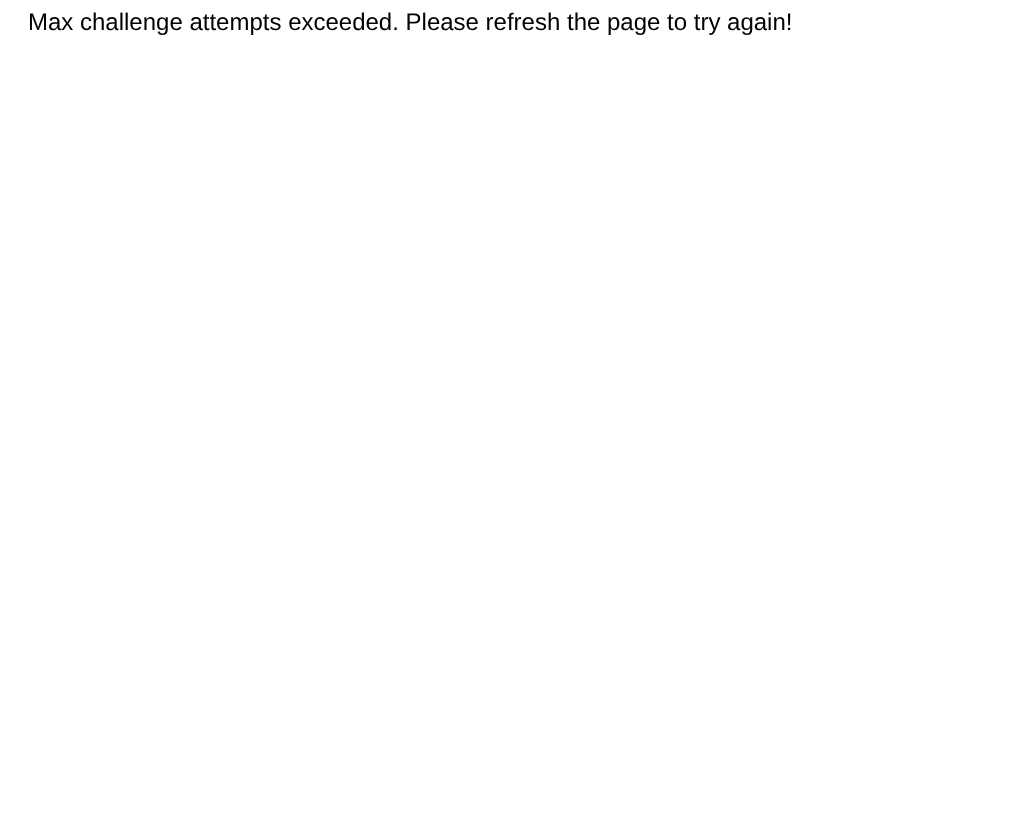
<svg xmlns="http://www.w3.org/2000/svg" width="1034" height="826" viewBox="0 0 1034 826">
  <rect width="100%" height="100%" fill="rgb(255,255,255)"/>
  <text x="28" y="30" font-family="Liberation Sans" font-size="24" fill="rgb(0,0,0)">Max challenge attempts exceeded. Please refresh the page to try again!</text>
</svg>
